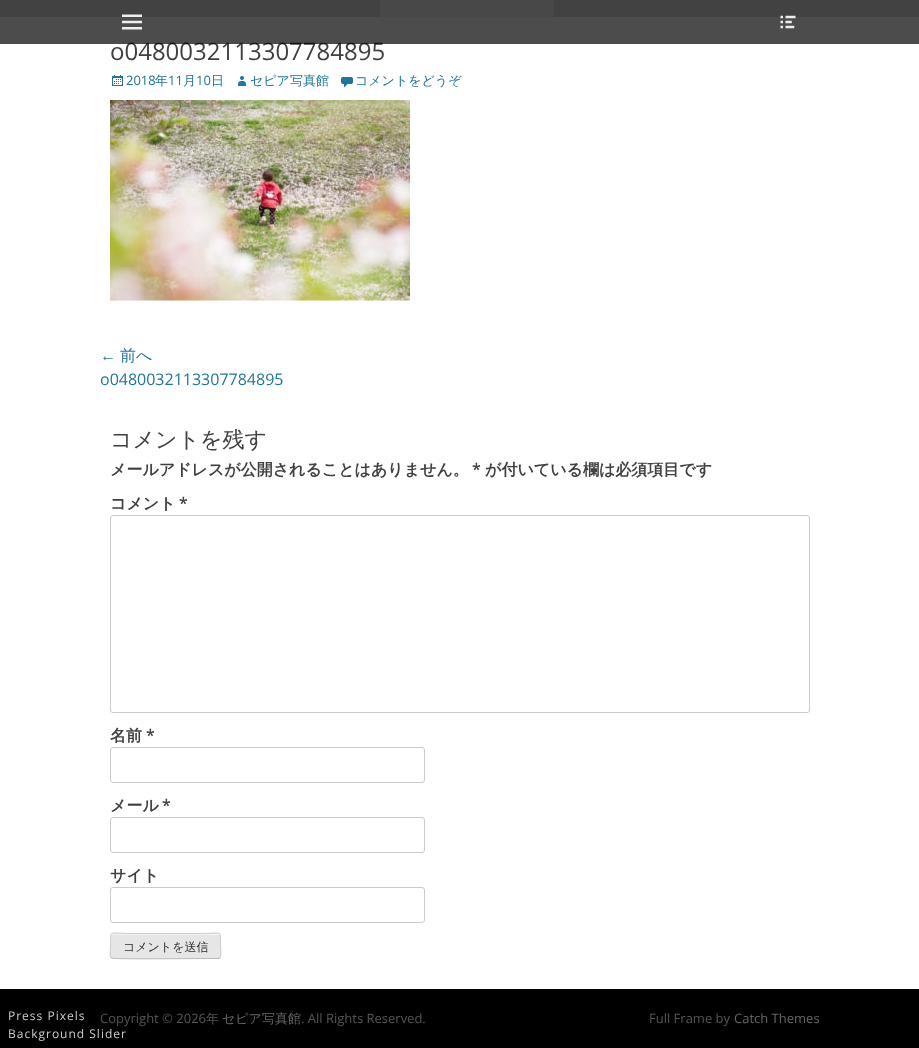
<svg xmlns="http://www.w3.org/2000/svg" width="919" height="1048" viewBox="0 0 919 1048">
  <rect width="100%" height="100%" fill="rgb(255,255,255)"/>
  <rect x="0" y="0" width="919" height="17" fill="rgb(221,221,221)"/>
  <rect x="380" y="0" width="174" height="17" fill="rgb(242,242,242)"/>
  <text x="110" y="60" font-family="Open Sans" font-size="24" fill="rgb(64,64,64)">o0480032113307784895</text>
  <rect x="0" y="0" width="919" height="44" fill="rgba(0,0,0,0.7)"/>
  <image x="122" y="14" width="20" height="16" href="pic1.png"/>
  <image x="780" y="15" width="16" height="14" href="pic2.png"/>
  <image x="112" y="75" width="11" height="11" href="pic3.png"/>
  <text x="126" y="85" font-family="Open Sans" font-size="13" fill="rgb(33,117,155)">2018</text>
  <text x="155" y="85" font-family="WenQuanYi Zen Hei" font-size="13" font-weight="500" fill="rgb(33,117,155)">年</text>
  <text x="168" y="85" font-family="Open Sans" font-size="13" fill="rgb(33,117,155)">11</text>
  <text x="183" y="85" font-family="WenQuanYi Zen Hei" font-size="13" font-weight="500" fill="rgb(33,117,155)">月</text>
  <text x="196" y="85" font-family="Open Sans" font-size="13" fill="rgb(33,117,155)">10</text>
  <text x="211" y="85" font-family="WenQuanYi Zen Hei" font-size="13" font-weight="500" fill="rgb(33,117,155)">日</text>
  <image x="238" y="76" width="8" height="10" href="pic4.png"/>
  <text x="250" y="85" font-family="WenQuanYi Zen Hei" font-size="13" font-weight="500" fill="rgb(33,117,155)">セピア写真館</text>
  <image x="341" y="77" width="12" height="11" href="pic5.png"/>
  <text x="355" y="85" font-family="WenQuanYi Zen Hei" font-size="13" font-weight="500" fill="rgb(33,117,155)">コメントをどうぞ</text>
  <image x="110" y="100" width="300" height="201" href="pic6.png"/>
  <text x="100" y="361" font-family="Liberation Sans" font-size="16" fill="rgb(33,117,155)">←</text>
  <text x="120" y="361" font-family="WenQuanYi Zen Hei" font-size="16" font-weight="500" fill="rgb(33,117,155)">前へ</text>
  <text x="100" y="385" font-family="Open Sans" font-size="16" fill="rgb(33,117,155)">o0480032113307784895</text>
  <text x="110" y="447" font-family="WenQuanYi Zen Hei" font-size="22" font-weight="500" fill="rgb(64,64,64)">コメントを残す</text>
  <text x="110" y="475" font-family="WenQuanYi Zen Hei" font-size="16" font-weight="bold" fill="rgb(64,64,64)">メールアドレスが公開されることはありません。</text>
  <text x="472" y="475" font-family="Open Sans" font-size="16" font-weight="600" fill="rgb(64,64,64)">*</text>
  <g font-family="WenQuanYi Zen Hei" font-size="16" font-weight="bold" fill="rgb(64,64,64)">
    <text x="485" y="475">が付いている欄は必須項目です</text>
    <text x="110" y="509">コメント</text>
  </g>
  <text x="179" y="509" font-family="Open Sans" font-size="16" font-weight="600" fill="rgb(64,64,64)">*</text>
  <rect x="110.5" y="515.5" width="699" height="197" rx="2.5" fill="none" stroke="rgb(204,204,204)"/>
  <text x="110" y="741" font-family="WenQuanYi Zen Hei" font-size="16" font-weight="bold" fill="rgb(64,64,64)">名前</text>
  <text x="146" y="741" font-family="Open Sans" font-size="16" font-weight="600" fill="rgb(64,64,64)">*</text>
  <rect x="110.5" y="747.5" width="314" height="35" rx="2.5" fill="none" stroke="rgb(204,204,204)"/>
  <text x="110" y="811" font-family="WenQuanYi Zen Hei" font-size="16" font-weight="bold" fill="rgb(64,64,64)">メール</text>
  <text x="162" y="811" font-family="Open Sans" font-size="16" font-weight="600" fill="rgb(64,64,64)">*</text>
  <rect x="110.5" y="817.5" width="314" height="35" rx="2.5" fill="none" stroke="rgb(204,204,204)"/>
  <text x="110" y="881" font-family="WenQuanYi Zen Hei" font-size="16" font-weight="bold" fill="rgb(64,64,64)">サイト</text>
  <rect x="110.5" y="887.5" width="314" height="35" rx="2.5" fill="none" stroke="rgb(204,204,204)"/>
  <rect x="110" y="933" width="111" height="26" rx="3" fill="rgb(230,230,230)"/>
  <path d="M113 935H218C219 935 220 936 220 937C220 936 220 934 218 934H113C111 934 111 936 111 937C111 936 112 935 113 935Z" fill="rgb(243,243,243)"/>
  <path d="M220 958L218 958.5H200.5C191.5 958.5 113.5 959.5 111.5 958H111" fill="none" stroke="rgb(187,187,187)"/>
  <path d="M111 958C109.5 956 110.5 948.5 110.5 946C110.5 929 109 933.5 130.5 933.5H200.5C222 933.5 220.5 929 220.5 946C220.5 948.5 221.5 956 220 958" fill="none" stroke="rgb(204,204,204)"/>
  <text x="123" y="951" font-family="WenQuanYi Zen Hei" font-size="12" font-weight="500" fill="rgb(46,46,46)">コメントを送信</text>
  <rect x="0" y="989" width="919" height="59" fill="rgb(0,0,0)"/>
  <g font-family="Open Sans" font-size="12" letter-spacing="1" fill="rgb(204,204,204)">
    <text>
      <tspan x="8" y="1020">Press Pixels</tspan>
      <tspan x="8" y="1038">Background Slider</tspan>
    </text>
  </g>
  <text x="100" y="1023" font-family="Open Sans" font-size="13" fill="rgb(85,85,85)">Copyright © 2026</text>
  <text x="206" y="1023" font-family="WenQuanYi Zen Hei" font-size="13" font-weight="500" fill="rgb(85,85,85)">年</text>
  <text x="222" y="1023" font-family="WenQuanYi Zen Hei" font-size="13" font-weight="500" fill="rgb(102,102,102)">セピア写真館</text>
  <g font-family="Open Sans" font-size="13" fill="rgb(85,85,85)">
    <text x="301" y="1023">. All Rights Reserved.</text>
    <text x="649" y="1023">Full Frame by</text>
  </g>
  <text x="734" y="1023" font-family="Open Sans" font-size="13" fill="rgb(102,102,102)">Catch Themes</text>
</svg>
